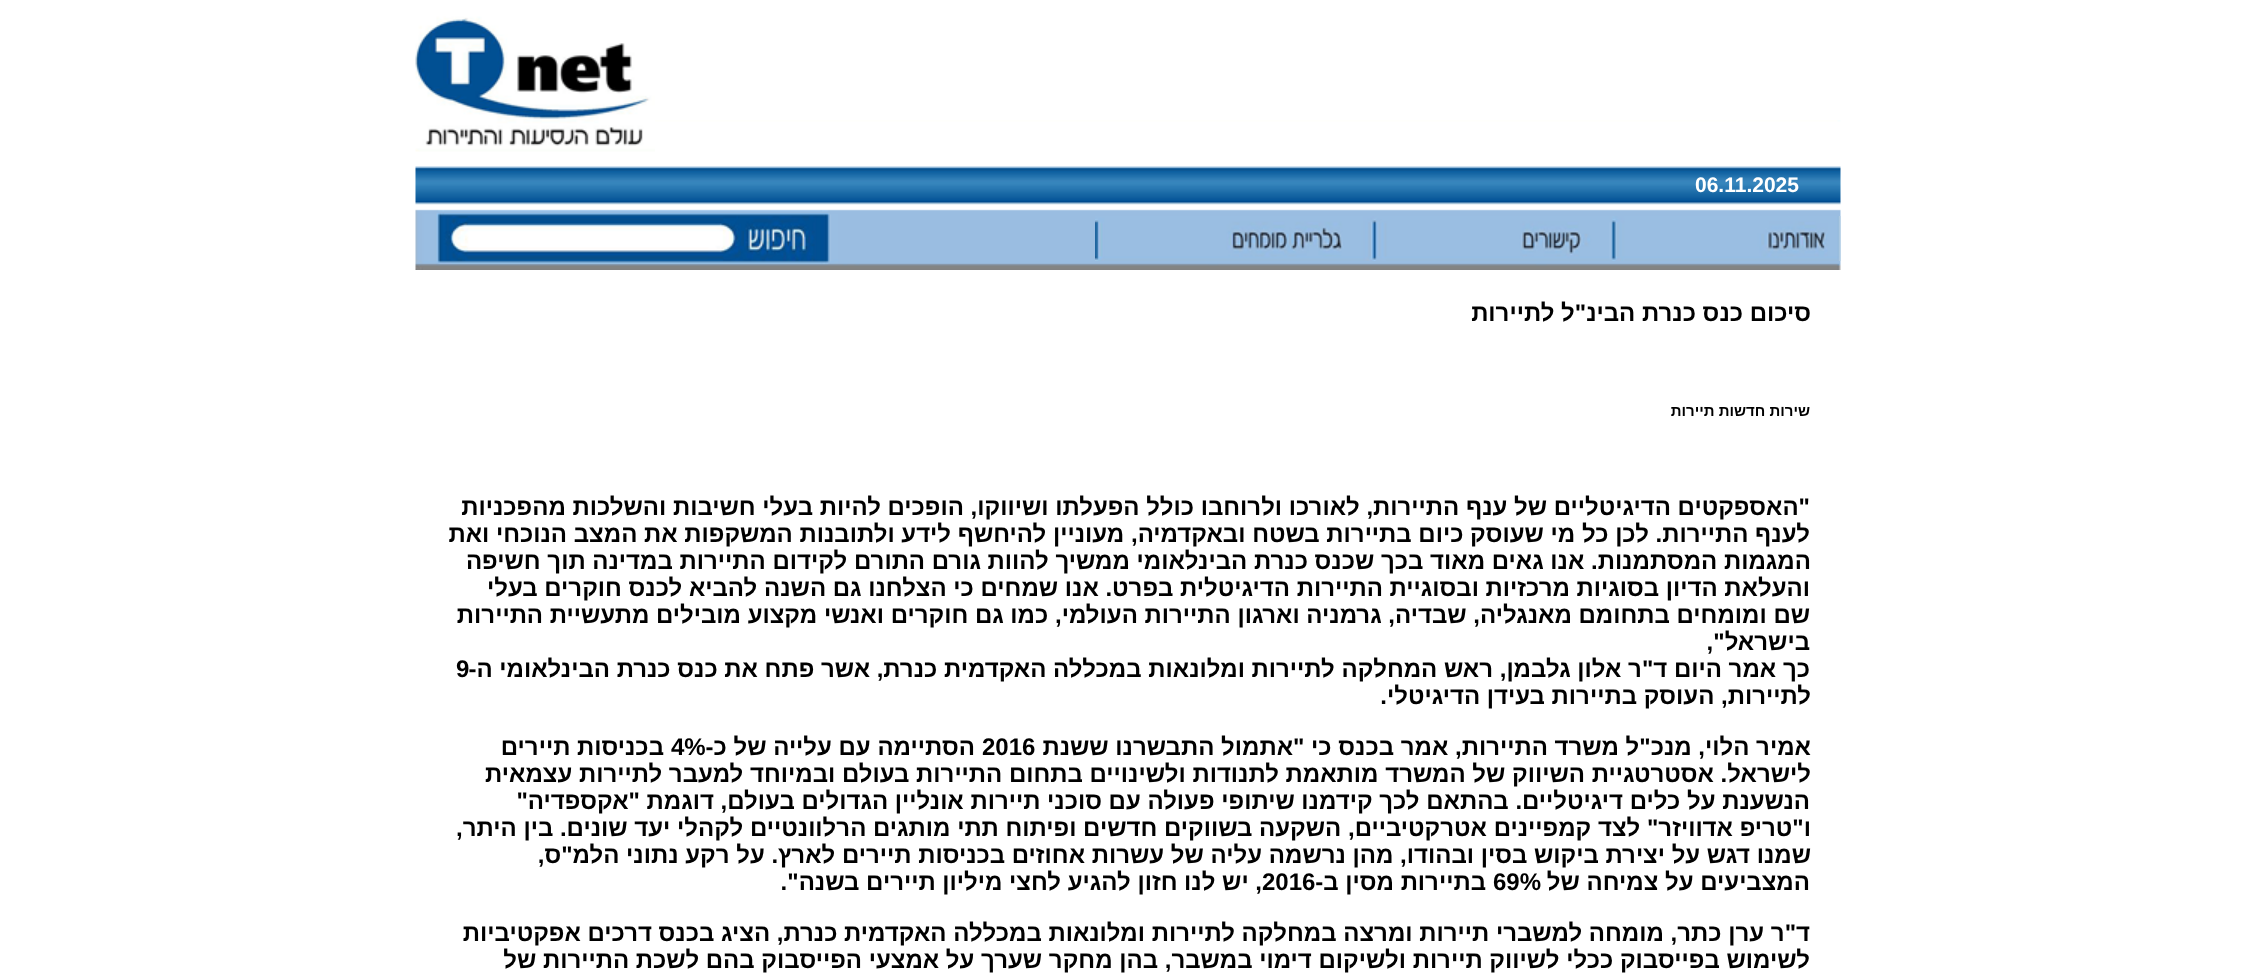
<svg xmlns="http://www.w3.org/2000/svg" width="2256" height="974" viewBox="0 0 2256 974">
  <rect width="100%" height="100%" fill="rgb(255,255,255)"/>
  <image x="415" y="120" width="1426" height="150" href="pic1.png"/>
  <image x="415" y="16" width="240" height="136" href="pic2.png"/>
  <text x="1695" y="192" font-family="Liberation Sans" font-size="21" font-weight="bold" fill="rgb(255,255,255)">06.11.2025</text>
  <image x="1095" y="216" width="746" height="45" href="pic3.png"/>
  <text x="1811" y="321" font-family="Liberation Sans" font-size="24" font-weight="bold" direction="rtl" fill="rgb(0,0,0)">סיכום כנס כנרת הבינ"ל לתיירות</text>
  <text x="1810" y="416" font-family="Liberation Sans" font-size="15" font-weight="bold" direction="rtl" fill="rgb(0,0,0)">שירות חדשות תיירות</text>
  <g font-family="Liberation Sans" font-size="24" font-weight="bold" direction="rtl" fill="rgb(0,0,0)">
    <text>
      <tspan x="1810" y="515">"האספקטים הדיגיטליים של ענף התיירות, לאורכו ולרוחבו כולל הפעלתו ושיווקו, הופכים להיות בעלי חשיבות והשלכות מהפכניות</tspan>
      <tspan x="1810" y="542">לענף התיירות. לכן כל מי שעוסק כיום בתיירות בשטח ובאקדמיה, מעוניין להיחשף לידע ולתובנות המשקפות את המצב הנוכחי ואת</tspan>
    </text>
    <text x="1811" y="569">המגמות המסתמנות. אנו גאים מאוד בכך שכנס כנרת הבינלאומי ממשיך להוות גורם התורם לקידום התיירות במדינה תוך חשיפה</text>
    <text>
      <tspan x="1810" y="596">והעלאת הדיון בסוגיות מרכזיות ובסוגיית התיירות הדיגיטלית בפרט. אנו שמחים כי הצלחנו גם השנה להביא לכנס חוקרים בעלי</tspan>
      <tspan x="1810" y="623">שם ומומחים בתחומם מאנגליה, שבדיה, גרמניה וארגון התיירות העולמי, כמו גם חוקרים ואנשי מקצוע מובילים מתעשיית התיירות</tspan>
      <tspan x="1810" y="650">בישראל",</tspan>
      <tspan x="1810" y="677">כך אמר היום ד"ר אלון גלבמן, ראש המחלקה לתיירות ומלונאות במכללה האקדמית כנרת, אשר פתח את כנס כנרת הבינלאומי ה-</tspan>
    </text>
  </g>
  <text x="456" y="677" font-family="Liberation Sans" font-size="24" font-weight="bold" fill="rgb(0,0,0)">9</text>
  <g font-family="Liberation Sans" font-size="24" font-weight="bold" direction="rtl" fill="rgb(0,0,0)">
    <text x="1811" y="704">לתיירות, העוסק בתיירות בעידן הדיגיטלי.</text>
    <text x="1811" y="755">אמיר הלוי, מנכ"ל משרד התיירות, אמר בכנס כי "אתמול התבשרנו ששנת</text>
  </g>
  <text x="982" y="755" font-family="Liberation Sans" font-size="24" font-weight="bold" fill="rgb(0,0,0)">2016</text>
  <text x="975" y="755" font-family="Liberation Sans" font-size="24" font-weight="bold" direction="rtl" fill="rgb(0,0,0)">הסתיימה עם עלייה של כ-</text>
  <text x="671" y="755" font-family="Liberation Sans" font-size="24" font-weight="bold" fill="rgb(0,0,0)">4%</text>
  <g font-family="Liberation Sans" font-size="24" font-weight="bold" direction="rtl" fill="rgb(0,0,0)">
    <text x="664" y="755">בכניסות תיירים</text>
    <text x="1811" y="782">לישראל. אסטרטגיית השיווק של המשרד מותאמת לתנודות ולשינויים בתחום התיירות בעולם ובמיוחד למעבר לתיירות עצמאית</text>
    <text x="1810" y="809">הנשענת על כלים דיגיטליים. בהתאם לכך קידמנו שיתופי פעולה עם סוכני תיירות אונליין הגדולים בעולם, דוגמת "אקספדיה"</text>
    <text>
      <tspan x="1811" y="836">ו"טריפ אדוויזר" לצד קמפיינים אטרקטיביים, השקעה בשווקים חדשים ופיתוח תתי מותגים הרלוונטיים לקהלי יעד שונים. בין היתר,</tspan>
      <tspan x="1811" y="863">שמנו דגש על יצירת ביקוש בסין ובהודו, מהן נרשמה עליה של עשרות אחוזים בכניסות תיירים לארץ. על רקע נתוני הלמ"ס,</tspan>
    </text>
    <text x="1810" y="890">המצביעים על צמיחה של</text>
  </g>
  <text x="1493" y="890" font-family="Liberation Sans" font-size="24" font-weight="bold" fill="rgb(0,0,0)">69%</text>
  <text x="1486" y="890" font-family="Liberation Sans" font-size="24" font-weight="bold" direction="rtl" fill="rgb(0,0,0)">בתיירות מסין ב-</text>
  <text x="1262" y="890" font-family="Liberation Sans" font-size="24" font-weight="bold" fill="rgb(0,0,0)">2016</text>
  <g font-family="Liberation Sans" font-size="24" font-weight="bold" direction="rtl" fill="rgb(0,0,0)">
    <text x="1262" y="890">, יש לנו חזון להגיע לחצי מיליון תיירים בשנה".</text>
    <text>
      <tspan x="1810" y="941">ד"ר ערן כתר, מומחה למשברי תיירות ומרצה במחלקה לתיירות ומלונאות במכללה האקדמית כנרת, הציג בכנס דרכים אפקטיביות</tspan>
      <tspan x="1810" y="968">לשימוש בפייסבוק ככלי לשיווק תיירות ולשיקום דימוי במשבר, בהן מחקר שערך על אמצעי הפייסבוק בהם לשכת התיירות של</tspan>
    </text>
  </g>
</svg>
